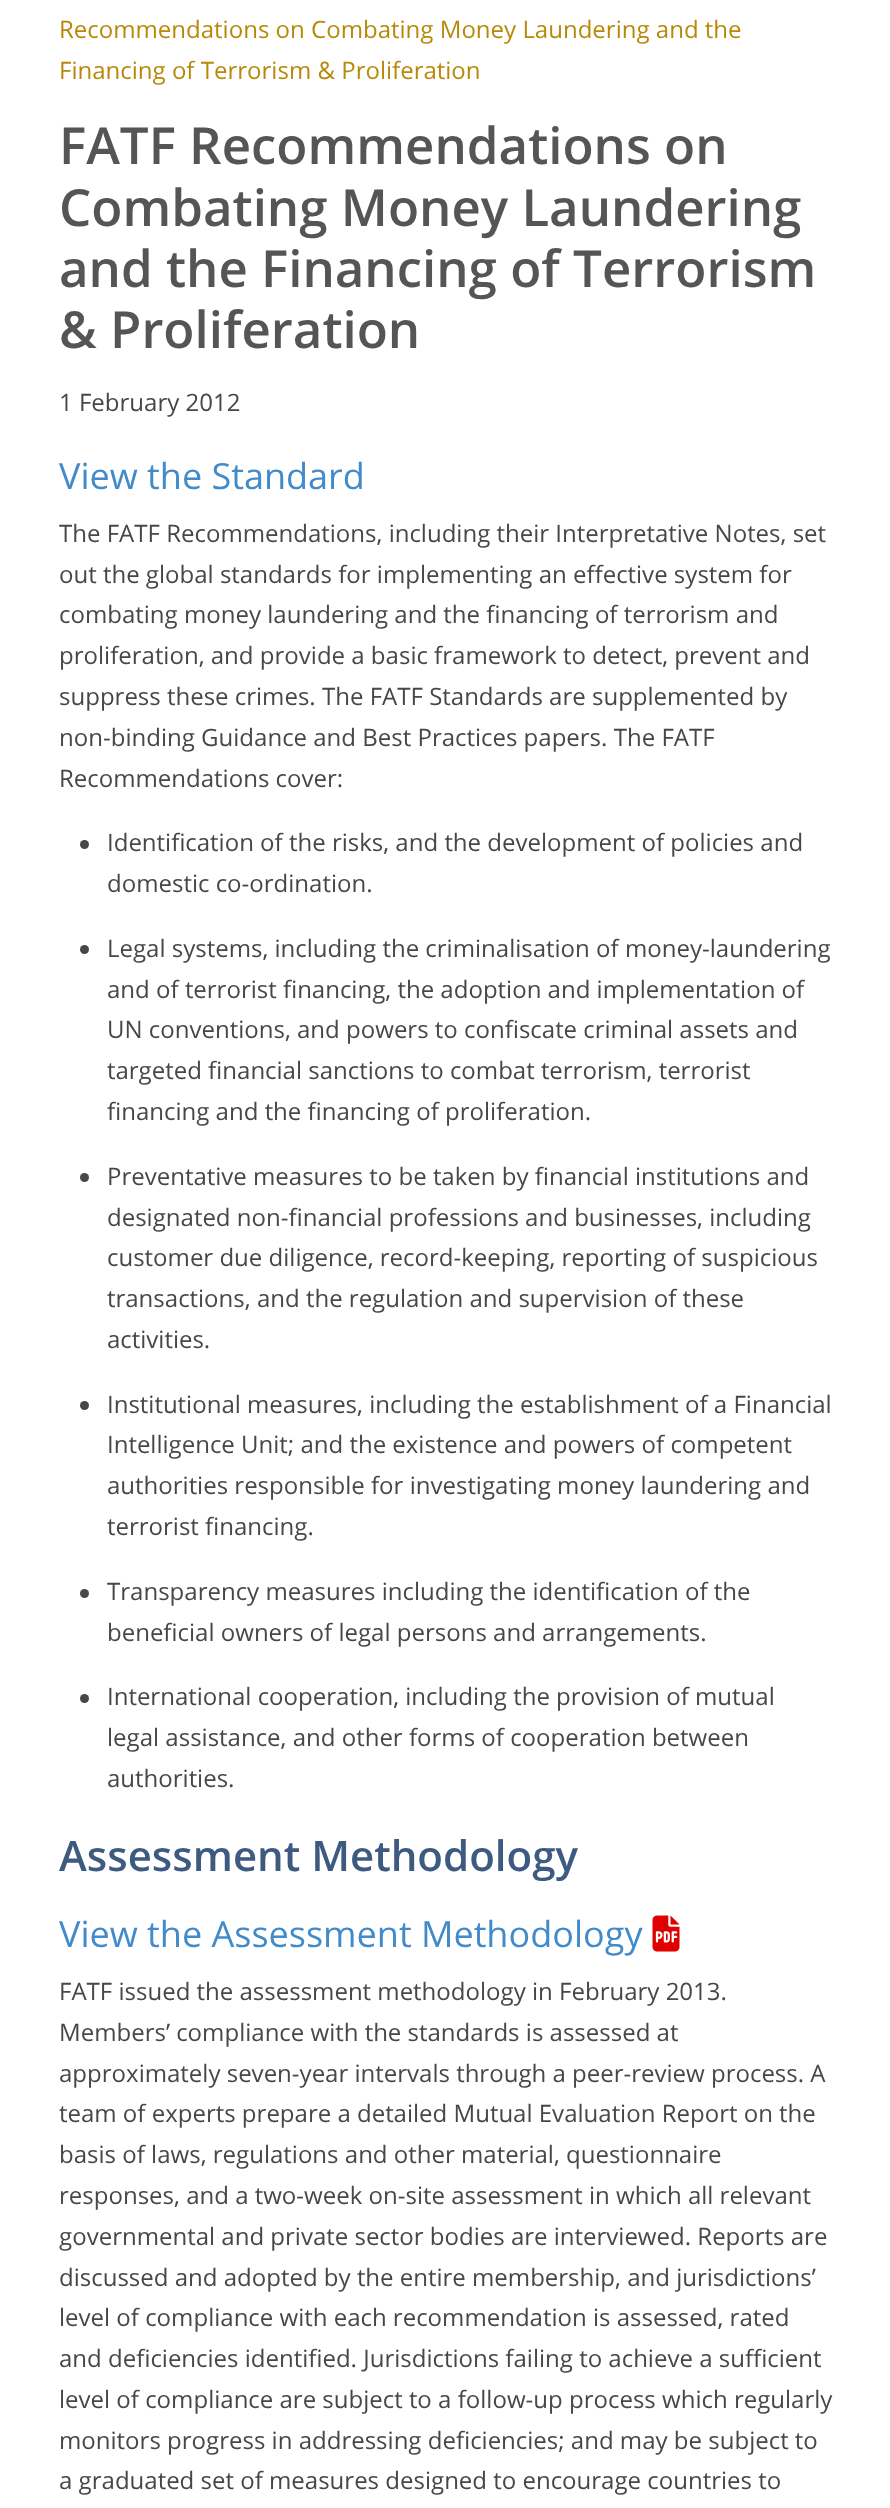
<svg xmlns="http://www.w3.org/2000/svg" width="890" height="2508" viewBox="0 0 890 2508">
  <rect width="100%" height="100%" fill="rgb(255,255,255)"/>
  <g font-family="Open Sans" font-size="24" fill="rgb(184,137,9)">
    <text>
      <tspan x="59" y="38">Recommendations on Combating Money Laundering and the</tspan>
      <tspan x="59" y="79">Financing of Terrorism &amp; Proliferation</tspan>
    </text>
  </g>
  <g font-family="Open Sans" font-size="51" font-weight="600" fill="rgb(85,85,85)">
    <text>
      <tspan x="59" y="164">FATF Recommendations on</tspan>
      <tspan x="59" y="226">Combating Money Laundering</tspan>
      <tspan x="59" y="287">and the Financing of Terrorism</tspan>
      <tspan x="59" y="348">&amp; Proliferation</tspan>
    </text>
  </g>
  <text x="59" y="411" font-family="Open Sans" font-size="24" fill="rgb(71,71,71)">1 February 2012</text>
  <text x="59" y="489" font-family="Open Sans" font-size="36" fill="rgb(66,139,202)">View the Standard</text>
  <g font-family="Open Sans" font-size="24" fill="rgb(71,71,71)">
    <text>
      <tspan x="59" y="542">The FATF Recommendations, including their Interpretative Notes, set</tspan>
      <tspan x="59" y="583">out the global standards for implementing an effective system for</tspan>
      <tspan x="59" y="623">combating money laundering and the financing of terrorism and</tspan>
      <tspan x="59" y="664">proliferation, and provide a basic framework to detect, prevent and</tspan>
      <tspan x="59" y="705">suppress these crimes. The FATF Standards are supplemented by</tspan>
      <tspan x="59" y="746">non-binding Guidance and Best Practices papers. The FATF</tspan>
      <tspan x="59" y="787">Recommendations cover:</tspan>
    </text>
  </g>
  <circle cx="84.5" cy="844.5" r="4.5" fill="rgb(71,71,71)"/>
  <g font-family="Open Sans" font-size="24" fill="rgb(71,71,71)">
    <text>
      <tspan x="107" y="851">Identification of the risks, and the development of policies and</tspan>
      <tspan x="107" y="892">domestic co-ordination.</tspan>
    </text>
  </g>
  <circle cx="84.5" cy="949.5" r="4.5" fill="rgb(71,71,71)"/>
  <g font-family="Open Sans" font-size="24" fill="rgb(71,71,71)">
    <text>
      <tspan x="107" y="957">Legal systems, including the criminalisation of money-laundering</tspan>
      <tspan x="107" y="998">and of terrorist financing, the adoption and implementation of</tspan>
      <tspan x="107" y="1038">UN conventions, and powers to confiscate criminal assets and</tspan>
      <tspan x="107" y="1079">targeted financial sanctions to combat terrorism, terrorist</tspan>
      <tspan x="107" y="1120">financing and the financing of proliferation.</tspan>
    </text>
  </g>
  <circle cx="84.5" cy="1177.5" r="4.5" fill="rgb(71,71,71)"/>
  <g font-family="Open Sans" font-size="24" fill="rgb(71,71,71)">
    <text>
      <tspan x="107" y="1185">Preventative measures to be taken by financial institutions and</tspan>
      <tspan x="107" y="1226">designated non-financial professions and businesses, including</tspan>
      <tspan x="107" y="1266">customer due diligence, record-keeping, reporting of suspicious</tspan>
      <tspan x="107" y="1307">transactions, and the regulation and supervision of these</tspan>
      <tspan x="107" y="1348">activities.</tspan>
    </text>
  </g>
  <circle cx="84.5" cy="1405.5" r="4.5" fill="rgb(71,71,71)"/>
  <g font-family="Open Sans" font-size="24" fill="rgb(71,71,71)">
    <text>
      <tspan x="107" y="1413">Institutional measures, including the establishment of a Financial</tspan>
      <tspan x="107" y="1453">Intelligence Unit; and the existence and powers of competent</tspan>
      <tspan x="107" y="1494">authorities responsible for investigating money laundering and</tspan>
      <tspan x="107" y="1535">terrorist financing.</tspan>
    </text>
  </g>
  <circle cx="84.5" cy="1593.5" r="4.5" fill="rgb(71,71,71)"/>
  <g font-family="Open Sans" font-size="24" fill="rgb(71,71,71)">
    <text>
      <tspan x="107" y="1600">Transparency measures including the identification of the</tspan>
      <tspan x="107" y="1641">beneficial owners of legal persons and arrangements.</tspan>
    </text>
  </g>
  <circle cx="84.5" cy="1698.5" r="4.5" fill="rgb(71,71,71)"/>
  <g font-family="Open Sans" font-size="24" fill="rgb(71,71,71)">
    <text>
      <tspan x="107" y="1705">International cooperation, including the provision of mutual</tspan>
      <tspan x="107" y="1746">legal assistance, and other forms of cooperation between</tspan>
      <tspan x="107" y="1787">authorities.</tspan>
    </text>
  </g>
  <text x="59" y="1871" font-family="Open Sans" font-size="42" font-weight="600" fill="rgb(61,90,128)">Assessment Methodology</text>
  <text x="59" y="1947" font-family="Open Sans" font-size="36" fill="rgb(66,139,202)">View the Assessment Methodology</text>
  <image x="652" y="1915" width="28" height="37" href="pic1.png"/>
  <g font-family="Open Sans" font-size="24" fill="rgb(71,71,71)">
    <text>
      <tspan x="59" y="2000">FATF issued the assessment methodology in February 2013.</tspan>
      <tspan x="59" y="2041">Members’ compliance with the standards is assessed at</tspan>
      <tspan x="59" y="2082">approximately seven-year intervals through a peer-review process. A</tspan>
      <tspan x="59" y="2122">team of experts prepare a detailed Mutual Evaluation Report on the</tspan>
      <tspan x="59" y="2163">basis of laws, regulations and other material, questionnaire</tspan>
      <tspan x="59" y="2204">responses, and a two-week on-site assessment in which all relevant</tspan>
      <tspan x="59" y="2245">governmental and private sector bodies are interviewed. Reports are</tspan>
      <tspan x="59" y="2286">discussed and adopted by the entire membership, and jurisdictions’</tspan>
      <tspan x="59" y="2326">level of compliance with each recommendation is assessed, rated</tspan>
      <tspan x="59" y="2367">and deficiencies identified. Jurisdictions failing to achieve a sufficient</tspan>
      <tspan x="59" y="2408">level of compliance are subject to a follow-up process which regularly</tspan>
      <tspan x="59" y="2449">monitors progress in addressing deficiencies; and may be subject to</tspan>
      <tspan x="59" y="2489">a graduated set of measures designed to encourage countries to</tspan>
    </text>
  </g>
</svg>
